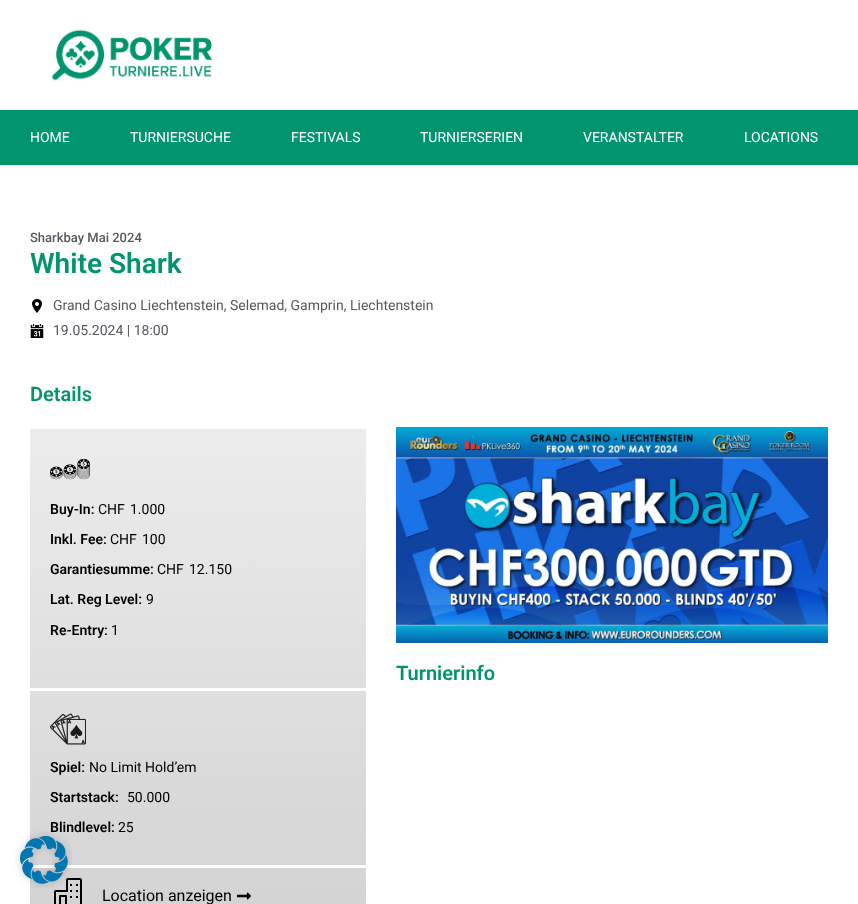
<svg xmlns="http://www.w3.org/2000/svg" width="858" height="904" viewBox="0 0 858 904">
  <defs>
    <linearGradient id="g1" gradientUnits="userSpaceOnUse" x1="198" y1="429" x2="198" y2="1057"><stop offset="0" stop-color="rgb(236,236,236)"/><stop offset="1" stop-color="rgb(204,204,204)"/></linearGradient>
  </defs>
  <rect width="100%" height="100%" fill="rgb(255,255,255)"/>
  <image x="51" y="29" width="162" height="52" href="pic1.png"/>
  <rect x="0" y="110" width="858" height="55" fill="rgb(0,149,109)"/>
  <g font-family="Roboto" font-size="14" fill="rgb(255,255,255)">
    <text x="30" y="142">HOME</text>
    <text x="130" y="142">TURNIERSUCHE</text>
    <text x="291" y="142">FESTIVALS</text>
    <text x="420" y="142">TURNIERSERIEN</text>
    <text x="583" y="142">VERANSTALTER</text>
    <text x="744" y="142">LOCATIONS</text>
  </g>
  <text x="30" y="242" font-family="Roboto" font-size="13" font-weight="500" fill="rgb(84,89,95)">Sharkbay Mai 2024</text>
  <text x="30" y="273" font-family="Roboto" font-size="28" font-weight="600" fill="rgb(0,149,109)">White Shark</text>
  <image x="32" y="299" width="10" height="14" href="pic2.png"/>
  <text x="53" y="310" font-family="Roboto" font-size="14" fill="rgb(84,89,95)">Grand Casino Liechtenstein, Selemad, Gamprin, Liechtenstein</text>
  <image x="30" y="324" width="14" height="14" href="pic3.png"/>
  <text x="53" y="335" font-family="Roboto" font-size="14" fill="rgb(84,89,95)">19.05.2024 | 18:00</text>
  <text x="30" y="401" font-family="Roboto" font-size="20" font-weight="600" fill="rgb(0,149,109)">Details</text>
  <rect x="30" y="429" width="336" height="475" fill="url(#g1)"/>
  <image x="50" y="458" width="40" height="22" href="pic4.png"/>
  <text x="50" y="514" font-family="Roboto" font-size="14" font-weight="600" fill="rgb(0,0,0)">Buy-In:</text>
  <g font-family="Roboto" font-size="14" fill="rgb(0,0,0)">
    <text x="98" y="514">CHF</text>
    <text x="130" y="514">1.000</text>
  </g>
  <text x="50" y="544" font-family="Roboto" font-size="14" font-weight="600" fill="rgb(0,0,0)">Inkl. Fee:</text>
  <g font-family="Roboto" font-size="14" fill="rgb(0,0,0)">
    <text x="110" y="544">CHF</text>
    <text x="142" y="544">100</text>
  </g>
  <text x="50" y="574" font-family="Roboto" font-size="14" font-weight="600" fill="rgb(0,0,0)">Garantiesumme:</text>
  <g font-family="Roboto" font-size="14" fill="rgb(0,0,0)">
    <text x="157" y="574">CHF</text>
    <text x="189" y="574">12.150</text>
  </g>
  <text x="50" y="604" font-family="Roboto" font-size="14" font-weight="600" fill="rgb(0,0,0)">Lat. Reg Level:</text>
  <text x="146" y="604" font-family="Roboto" font-size="14" fill="rgb(0,0,0)">9</text>
  <text x="50" y="635" font-family="Roboto" font-size="14" font-weight="600" fill="rgb(0,0,0)">Re-Entry:</text>
  <text x="111" y="635" font-family="Roboto" font-size="14" fill="rgb(0,0,0)">1</text>
  <rect x="30" y="688" width="336" height="3" fill="rgb(255,255,255)"/>
  <rect x="30" y="865" width="336" height="3" fill="rgb(255,255,255)"/>
  <image x="50" y="713" width="36" height="32" href="pic5.png"/>
  <text x="50" y="772" font-family="Roboto" font-size="14" font-weight="600" fill="rgb(0,0,0)">Spiel:</text>
  <text x="89" y="772" font-family="Roboto" font-size="14" fill="rgb(0,0,0)">No Limit Hold’em</text>
  <text x="50" y="802" font-family="Roboto" font-size="14" font-weight="600" fill="rgb(0,0,0)">Startstack:</text>
  <text x="127" y="802" font-family="Roboto" font-size="14" fill="rgb(0,0,0)">50.000</text>
  <text x="50" y="832" font-family="Roboto" font-size="14" font-weight="600" fill="rgb(0,0,0)">Blindlevel:</text>
  <text x="118" y="832" font-family="Roboto" font-size="14" fill="rgb(0,0,0)">25</text>
  <image x="54" y="878" width="28" height="26" href="pic6.png"/>
  <text x="102" y="901" font-family="Roboto" font-size="16" fill="rgb(0,0,0)">Location anzeigen</text>
  <image x="237" y="892" width="14" height="8" href="pic7.png"/>
  <image x="396" y="427" width="432" height="216" href="pic8.png"/>
  <text x="396" y="680" font-family="Roboto" font-size="20" font-weight="600" fill="rgb(0,149,109)">Turnierinfo</text>
  <image x="15" y="831" width="57" height="57" href="pic9.png"/>
</svg>
